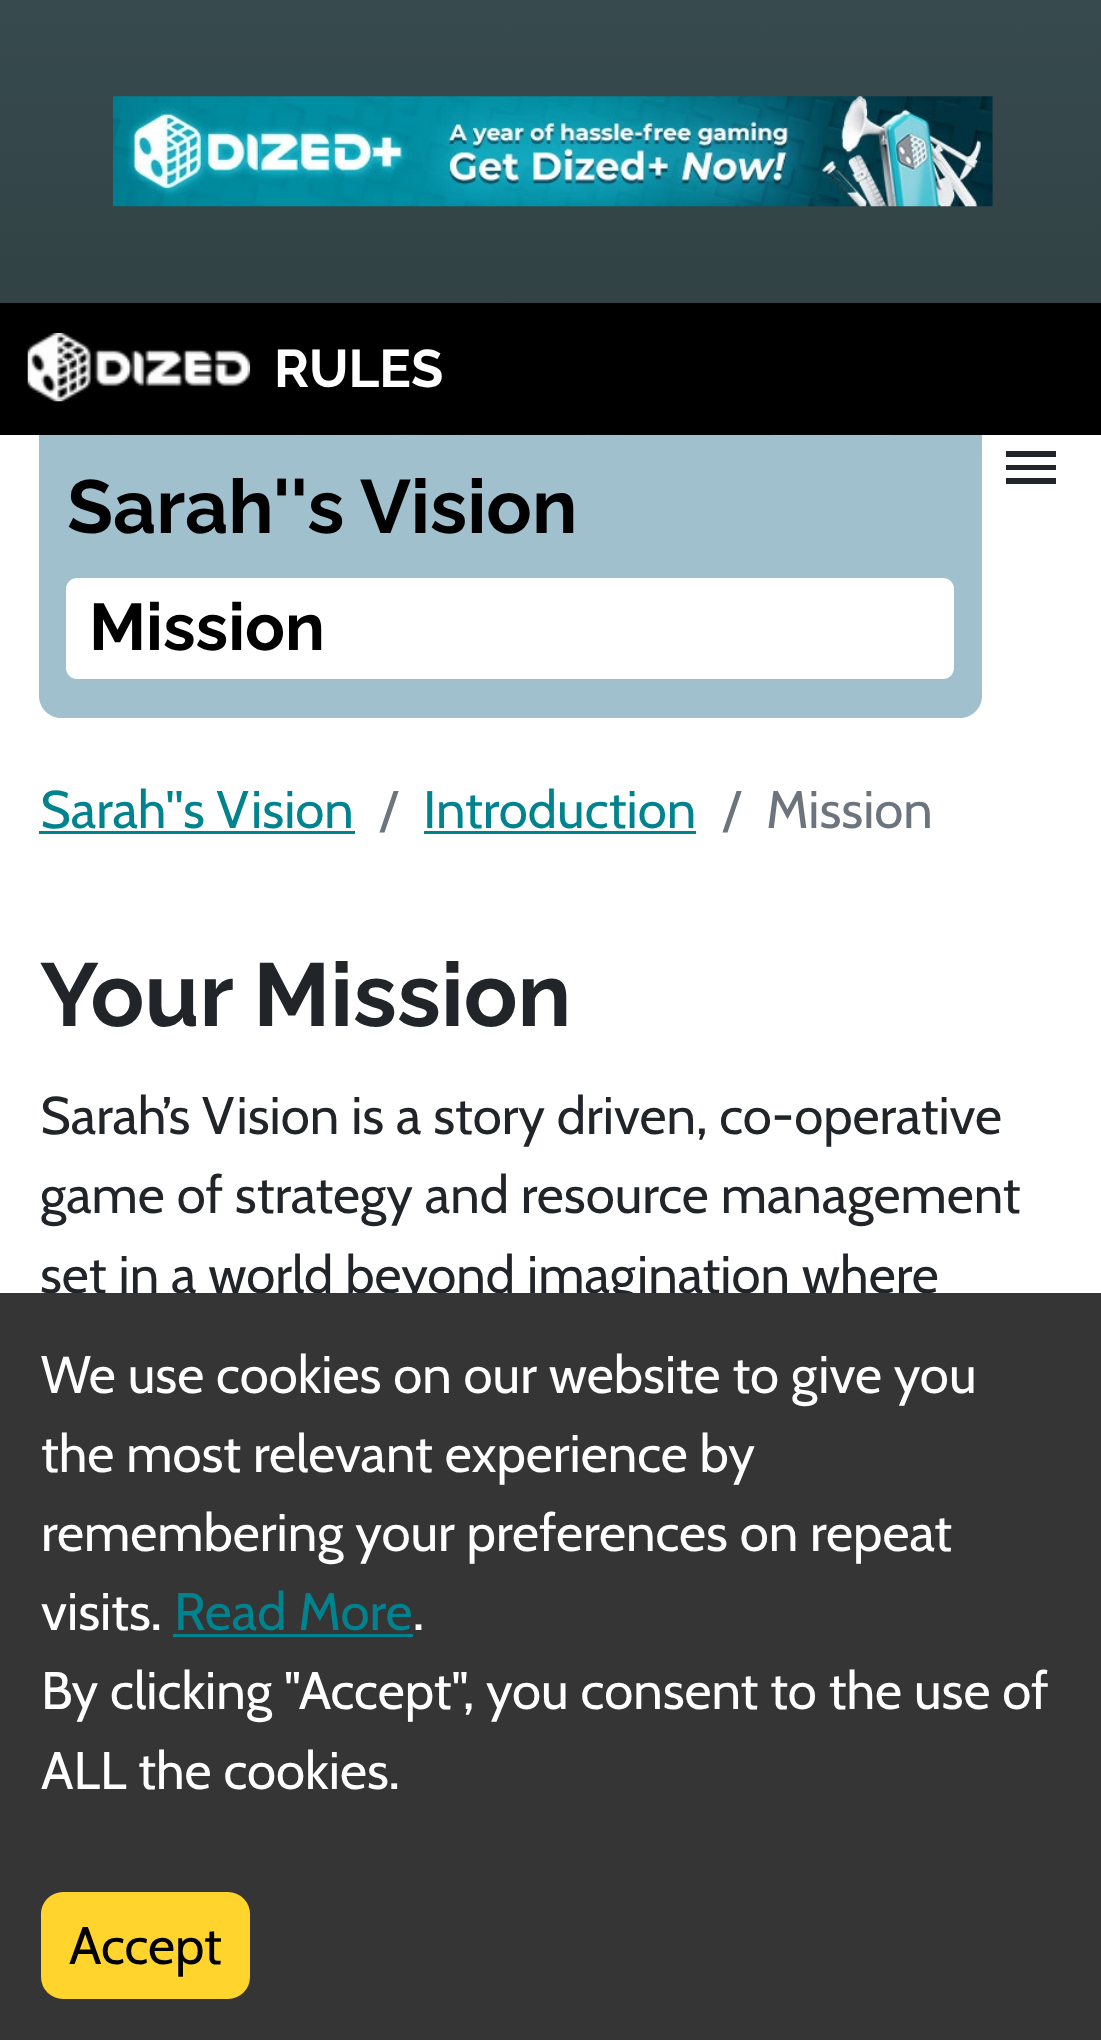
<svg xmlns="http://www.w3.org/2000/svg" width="1101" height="2040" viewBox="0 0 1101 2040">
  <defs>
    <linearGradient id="g1" gradientUnits="userSpaceOnUse" x1="551" y1="0" x2="551" y2="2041"><stop offset="0" stop-color="rgb(55,74,78)"/><stop offset="0.2" stop-color="rgb(48,64,66)"/><stop offset="0.6" stop-color="rgb(15,21,21)"/></linearGradient>
  </defs>
  <rect width="100%" height="100%" fill="rgb(255,255,255)"/>
  <rect x="0" y="0" width="1101" height="303" fill="url(#g1)"/>
  <image x="112" y="96" width="881" height="111" href="pic1.png"/>
  <rect x="0" y="303" width="1101" height="132" fill="rgb(0,0,0)"/>
  <image x="27" y="332" width="224" height="70" href="pic2.png"/>
  <text x="274" y="387" font-family="Raleway" font-size="52.75" font-weight="bold" fill="rgb(255,255,255)">RULES</text>
  <image x="0" y="434" width="1030" height="1" href="pic3.png"/>
  <path d="M1006 451H1056V457H1006ZM1006 470V465H1056V470ZM1006 484V478H1056V484Z" fill="rgb(33,37,41)"/>
  <path d="M39 435H982V696C982 708 972 718 960 718H61C49 718 39 708 39 696Z" fill="rgb(161,192,206)"/>
  <text x="67" y="533" font-family="Raleway" font-size="75.25" font-weight="bold" fill="rgb(0,0,0)">Sarah''s Vision</text>
  <rect x="66" y="578" width="888" height="101" rx="11" fill="rgb(255,255,255)"/>
  <text x="89" y="650" font-family="Raleway" font-size="66" font-weight="bold" fill="rgb(0,0,0)">Mission</text>
  <text x="40" y="828" font-family="Cabin" font-size="52.75" fill="rgb(0,131,143)">Sarah''s Vision</text>
  <rect x="39" y="831" width="316" height="3" fill="rgb(0,131,143)"/>
  <text x="380" y="828" font-family="Cabin" font-size="52.75" fill="rgb(108,117,125)">/</text>
  <text x="423" y="828" font-family="Cabin" font-size="52.75" fill="rgb(0,131,143)">Introduction</text>
  <rect x="424" y="831" width="272" height="3" fill="rgb(0,131,143)"/>
  <g font-family="Cabin" font-size="52.75" fill="rgb(108,117,125)">
    <text x="723" y="828">/</text>
    <text x="766" y="828">Mission</text>
  </g>
  <text x="40" y="1026" font-family="Raleway" font-size="89" font-weight="bold" fill="rgb(33,37,41)">Your Mission</text>
  <g font-family="Cabin" font-size="52.75" fill="rgb(33,37,41)">
    <text>
      <tspan x="40" y="1134">Sarah’s Vision is a story driven, co-operative</tspan>
      <tspan x="40" y="1213">game of strategy and resource management</tspan>
      <tspan x="40" y="1293">set in a world beyond imagination where</tspan>
    </text>
  </g>
  <rect x="0" y="1293" width="1101" height="747" fill="rgb(53,53,53)"/>
  <g font-family="Cabin" font-size="52.75" fill="rgb(255,255,255)">
    <text>
      <tspan x="41" y="1393">We use cookies on our website to give you</tspan>
      <tspan x="41" y="1472">the most relevant experience by</tspan>
      <tspan x="41" y="1551">remembering your preferences on repeat</tspan>
      <tspan x="41" y="1630">visits.</tspan>
    </text>
  </g>
  <text x="174" y="1630" font-family="Cabin" font-size="52.75" fill="rgb(0,131,143)">Read More</text>
  <rect x="173" y="1634" width="240" height="3" fill="rgb(0,131,143)"/>
  <g font-family="Cabin" font-size="52.75" fill="rgb(255,255,255)">
    <text x="413" y="1630">.</text>
    <text>
      <tspan x="41" y="1709">By clicking "Accept", you consent to the use of</tspan>
      <tspan x="41" y="1789">ALL the cookies.</tspan>
    </text>
  </g>
  <rect x="41" y="1892" width="209" height="107" rx="22" fill="rgb(255,212,45)"/>
  <text x="69" y="1964" font-family="Cabin" font-size="52.75" fill="rgb(0,0,0)">Accept</text>
</svg>
